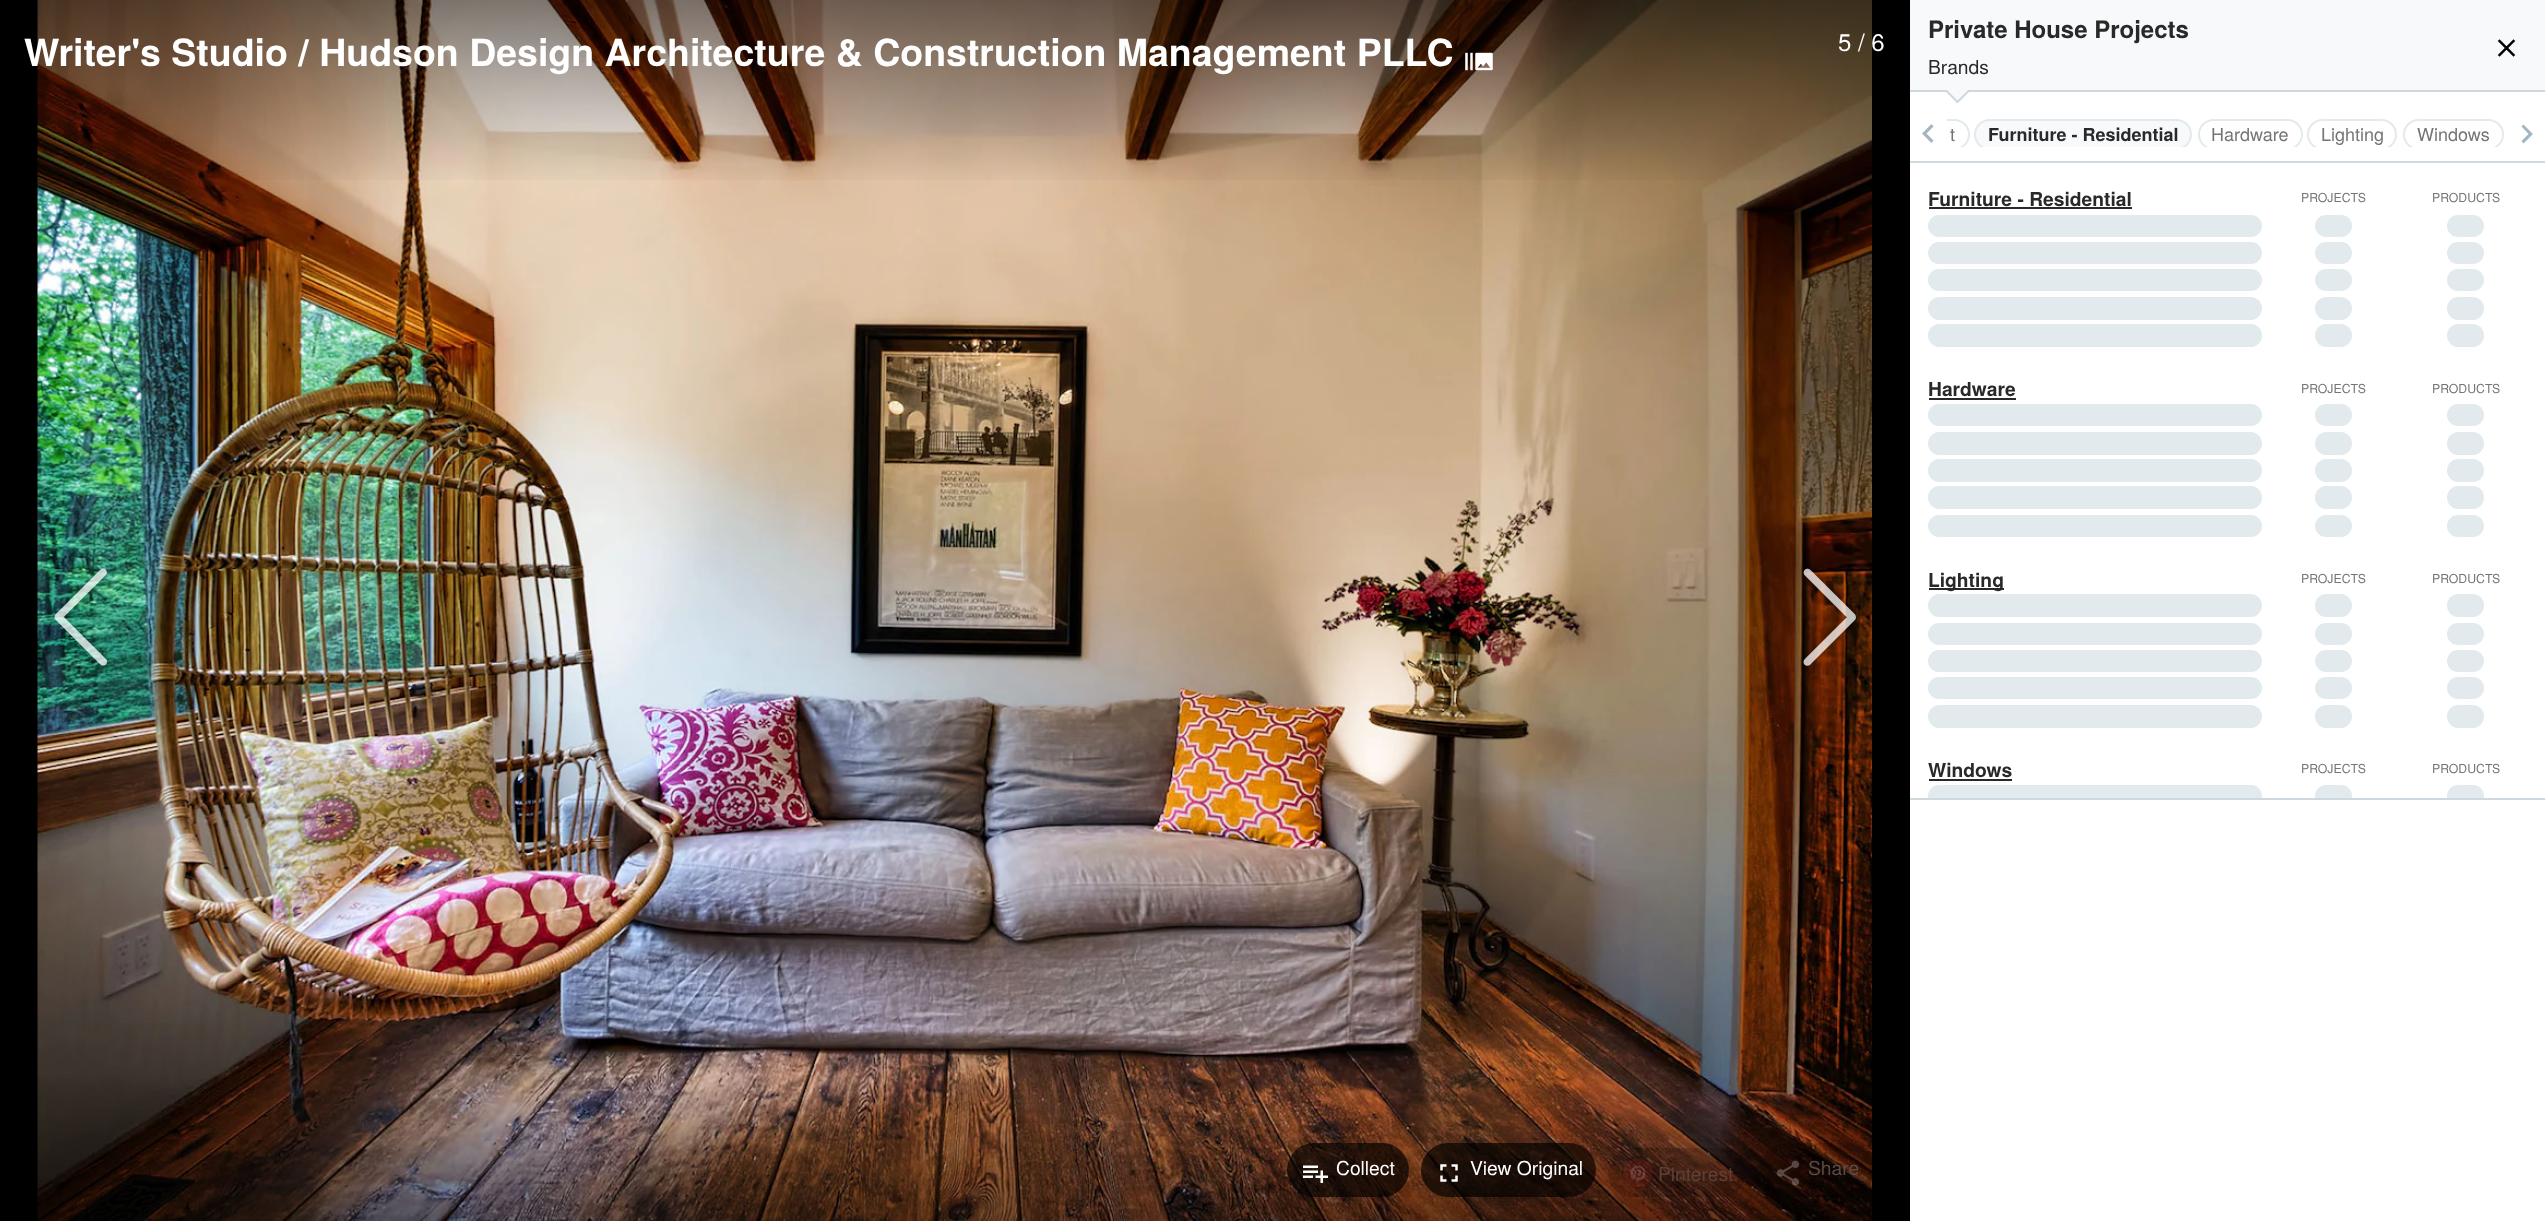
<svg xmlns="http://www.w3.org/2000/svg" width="2545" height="1221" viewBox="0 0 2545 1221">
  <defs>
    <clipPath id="clip1"><rect x="1947" y="110" width="561" height="37"/></clipPath>
    <linearGradient id="g1" gradientUnits="userSpaceOnUse" x1="955" y1="0" x2="955" y2="188"><stop offset="0" stop-color="rgb(0,0,0)" stop-opacity="0.5"/><stop offset="1" stop-color="rgb(0,0,0)" stop-opacity="0"/></linearGradient>
    <linearGradient id="g2" gradientUnits="userSpaceOnUse" x1="955" y1="1221" x2="955" y2="1071"><stop offset="0" stop-color="rgb(0,0,0)" stop-opacity="0.5"/><stop offset="1" stop-color="rgb(0,0,0)" stop-opacity="0"/></linearGradient>
    <clipPath id="clip2"><rect x="1910" y="162" width="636" height="636"/></clipPath>
  </defs>
  <rect width="100%" height="100%" fill="rgb(255,255,255)"/>
  <rect x="0" y="0" width="1910" height="1221" fill="rgb(0,0,0)"/>
  <image x="37" y="0" width="1835" height="1221" href="pic1.png"/>
  <path d="M1933.5 140.5L1931.5 143L1922 133.5L1931.5 124L1933.5 126.5L1926.5 133.5Z" fill="rgb(162,183,195)"/>
  <g clip-path="url(#clip1)">
    <rect x="1788" y="120" width="181" height="29" rx="14.5" fill="none" stroke="rgb(227,234,237)" stroke-width="2"/>
  </g>
  <rect x="37" y="0" width="1835" height="180" fill="url(#g1)"/>
  <text x="24" y="66" font-family="TeX Gyre Heros" font-size="37.5" font-weight="bold" fill="rgb(255,255,255)">Writer's Studio / Hudson Design Architecture &amp; Construction Management PLLC</text>
  <image x="1465" y="52" width="28" height="19" href="pic2.png"/>
  <text x="1838" y="51" font-family="TeX Gyre Heros" font-size="24" fill="rgb(255,255,255)">5 / 6</text>
  <image x="51" y="565" width="59" height="103" href="pic3.png"/>
  <image x="1800" y="568" width="58" height="99" href="pic4.png"/>
  <rect x="37" y="1077" width="1835" height="144" fill="url(#g2)"/>
  <rect x="1287" y="1143" width="122" height="54" rx="27" fill="rgba(0,0,0,0.65)"/>
  <image x="1303" y="1165" width="25" height="18" href="pic5.png"/>
  <text x="1336" y="1175" font-family="TeX Gyre Heros" font-size="19.25" fill="rgb(255,255,255)">Collect</text>
  <rect x="1421" y="1143" width="175" height="54" rx="27" fill="rgba(0,0,0,0.65)"/>
  <image x="1440" y="1164" width="18" height="18" href="pic6.png"/>
  <text x="1470" y="1175" font-family="TeX Gyre Heros" font-size="19.25" fill="rgb(255,255,255)">View Original</text>
  <rect x="1608" y="1148" width="138" height="49" rx="24.5" fill="rgba(0,0,0,0.16)"/>
  <image x="1623" y="1158" width="30" height="30" href="pic7.png"/>
  <text x="1658" y="1181" font-family="TeX Gyre Heros" font-size="19.25" fill="rgb(93,65,54)">Pinterest</text>
  <rect x="1760" y="1143" width="114" height="54" rx="27" fill="rgba(0,0,0,0.16)"/>
  <image x="1776" y="1160" width="24" height="26" href="pic8.png"/>
  <text x="1808" y="1175" font-family="TeX Gyre Heros" font-size="19.25" fill="rgb(90,75,69)">Share</text>
  <rect x="1910" y="0" width="635" height="90" fill="rgb(247,249,250)"/>
  <rect x="1910" y="90" width="635" height="2" fill="rgb(206,217,223)"/>
  <text x="1928" y="38" font-family="TeX Gyre Heros" font-size="24" font-weight="bold" fill="rgb(41,41,41)">Private House Projects</text>
  <text x="1928" y="74" font-family="TeX Gyre Heros" font-size="19.25" fill="rgb(41,41,41)">Brands</text>
  <path d="M1944 90H1971L1957.5 103.5Z" fill="rgb(206,217,223)"/>
  <path d="M1945.5 88.5H1969.5L1957.5 100.5Z" fill="rgb(247,249,250)"/>
  <text x="1950" y="141" font-family="TeX Gyre Heros" font-size="18" fill="rgb(117,117,117)">t</text>
  <g clip-path="url(#clip1)">
    <rect x="1975" y="120" width="216" height="29" rx="14.5" fill="rgb(247,249,250)" stroke="rgb(227,234,237)" stroke-width="2"/>
  </g>
  <text x="1988" y="141" font-family="TeX Gyre Heros" font-size="18" font-weight="bold" fill="rgb(41,41,41)">Furniture - Residential</text>
  <g clip-path="url(#clip1)">
    <rect x="2199" y="120" width="103" height="29" rx="14.5" fill="none" stroke="rgb(227,234,237)" stroke-width="2"/>
  </g>
  <text x="2211" y="141" font-family="TeX Gyre Heros" font-size="18" fill="rgb(117,117,117)">Hardware</text>
  <g clip-path="url(#clip1)">
    <rect x="2308" y="120" width="88" height="29" rx="14.5" fill="none" stroke="rgb(227,234,237)" stroke-width="2"/>
  </g>
  <text x="2321" y="141" font-family="TeX Gyre Heros" font-size="18" fill="rgb(117,117,117)">Lighting</text>
  <g clip-path="url(#clip1)">
    <rect x="2404" y="120" width="99" height="29" rx="14.5" fill="none" stroke="rgb(227,234,237)" stroke-width="2"/>
  </g>
  <text x="2417" y="141" font-family="TeX Gyre Heros" font-size="18" fill="rgb(117,117,117)">Windows</text>
  <path d="M2521.5 141L2528.5 134L2521.5 126.5L2523.5 124.5L2533 134L2523.5 143.5Z" fill="rgb(162,183,195)"/>
  <rect x="1910" y="161" width="635" height="2" fill="rgb(206,217,223)"/>
  <text x="1928" y="206" font-family="TeX Gyre Heros" font-size="19.25" font-weight="bold" fill="rgb(41,41,41)">Furniture - Residential</text>
  <rect x="1929" y="207" width="203" height="2" fill="rgb(41,41,41)"/>
  <g font-family="TeX Gyre Heros" font-size="12.25" fill="rgb(117,117,117)">
    <text x="2301" y="202">PROJECTS</text>
    <text x="2432" y="202">PRODUCTS</text>
  </g>
  <rect x="1928" y="215" width="334" height="22" rx="11" fill="rgb(227,234,237)"/>
  <rect x="2315" y="215" width="37" height="22" rx="11" fill="rgb(227,234,237)"/>
  <rect x="2447" y="215" width="37" height="22" rx="11" fill="rgb(227,234,237)"/>
  <rect x="1928" y="242" width="334" height="22" rx="11" fill="rgb(227,234,237)"/>
  <rect x="2315" y="242" width="37" height="22" rx="11" fill="rgb(227,234,237)"/>
  <rect x="2447" y="242" width="37" height="22" rx="11" fill="rgb(227,234,237)"/>
  <rect x="1928" y="269" width="334" height="22" rx="11" fill="rgb(227,234,237)"/>
  <rect x="2315" y="269" width="37" height="22" rx="11" fill="rgb(227,234,237)"/>
  <rect x="2447" y="269" width="37" height="22" rx="11" fill="rgb(227,234,237)"/>
  <rect x="1928" y="297" width="334" height="23" rx="11.5" fill="rgb(227,234,237)"/>
  <rect x="2315" y="297" width="37" height="23" rx="11.5" fill="rgb(227,234,237)"/>
  <rect x="2447" y="297" width="37" height="23" rx="11.5" fill="rgb(227,234,237)"/>
  <rect x="1928" y="324" width="334" height="23" rx="11.5" fill="rgb(227,234,237)"/>
  <rect x="2315" y="324" width="37" height="23" rx="11.5" fill="rgb(227,234,237)"/>
  <rect x="2447" y="324" width="37" height="23" rx="11.5" fill="rgb(227,234,237)"/>
  <text x="1928" y="396" font-family="TeX Gyre Heros" font-size="19.25" font-weight="bold" fill="rgb(41,41,41)">Hardware</text>
  <rect x="1929" y="398" width="87" height="2" fill="rgb(41,41,41)"/>
  <g font-family="TeX Gyre Heros" font-size="12.25" fill="rgb(117,117,117)">
    <text x="2301" y="393">PROJECTS</text>
    <text x="2432" y="393">PRODUCTS</text>
  </g>
  <rect x="1928" y="404" width="334" height="22" rx="11" fill="rgb(227,234,237)"/>
  <rect x="2315" y="404" width="37" height="22" rx="11" fill="rgb(227,234,237)"/>
  <rect x="2447" y="404" width="37" height="22" rx="11" fill="rgb(227,234,237)"/>
  <rect x="1928" y="432" width="334" height="23" rx="11.5" fill="rgb(227,234,237)"/>
  <rect x="2315" y="432" width="37" height="23" rx="11.5" fill="rgb(227,234,237)"/>
  <rect x="2447" y="432" width="37" height="23" rx="11.5" fill="rgb(227,234,237)"/>
  <rect x="1928" y="459" width="334" height="23" rx="11.5" fill="rgb(227,234,237)"/>
  <rect x="2315" y="459" width="37" height="23" rx="11.5" fill="rgb(227,234,237)"/>
  <rect x="2447" y="459" width="37" height="23" rx="11.5" fill="rgb(227,234,237)"/>
  <rect x="1928" y="486" width="334" height="23" rx="11.5" fill="rgb(227,234,237)"/>
  <rect x="2315" y="486" width="37" height="23" rx="11.5" fill="rgb(227,234,237)"/>
  <rect x="2447" y="486" width="37" height="23" rx="11.5" fill="rgb(227,234,237)"/>
  <rect x="1928" y="515" width="334" height="22" rx="11" fill="rgb(227,234,237)"/>
  <rect x="2315" y="515" width="37" height="22" rx="11" fill="rgb(227,234,237)"/>
  <rect x="2447" y="515" width="37" height="22" rx="11" fill="rgb(227,234,237)"/>
  <rect x="1929" y="588" width="75" height="2" fill="rgb(41,41,41)"/>
  <text x="1928" y="587" font-family="TeX Gyre Heros" font-size="19.25" font-weight="bold" fill="rgb(41,41,41)">Lighting</text>
  <g font-family="TeX Gyre Heros" font-size="12.25" fill="rgb(117,117,117)">
    <text x="2301" y="583">PROJECTS</text>
    <text x="2432" y="583">PRODUCTS</text>
  </g>
  <rect x="1928" y="594" width="334" height="23" rx="11.5" fill="rgb(227,234,237)"/>
  <rect x="2315" y="594" width="37" height="23" rx="11.5" fill="rgb(227,234,237)"/>
  <rect x="2447" y="594" width="37" height="23" rx="11.5" fill="rgb(227,234,237)"/>
  <rect x="1928" y="623" width="334" height="22" rx="11" fill="rgb(227,234,237)"/>
  <rect x="2315" y="623" width="37" height="22" rx="11" fill="rgb(227,234,237)"/>
  <rect x="2447" y="623" width="37" height="22" rx="11" fill="rgb(227,234,237)"/>
  <rect x="1928" y="650" width="334" height="22" rx="11" fill="rgb(227,234,237)"/>
  <rect x="2315" y="650" width="37" height="22" rx="11" fill="rgb(227,234,237)"/>
  <rect x="2447" y="650" width="37" height="22" rx="11" fill="rgb(227,234,237)"/>
  <rect x="1928" y="677" width="334" height="22" rx="11" fill="rgb(227,234,237)"/>
  <rect x="2315" y="677" width="37" height="22" rx="11" fill="rgb(227,234,237)"/>
  <rect x="2447" y="677" width="37" height="22" rx="11" fill="rgb(227,234,237)"/>
  <rect x="1928" y="705" width="334" height="23" rx="11.5" fill="rgb(227,234,237)"/>
  <rect x="2315" y="705" width="37" height="23" rx="11.5" fill="rgb(227,234,237)"/>
  <rect x="2447" y="705" width="37" height="23" rx="11.5" fill="rgb(227,234,237)"/>
  <text x="1928" y="777" font-family="TeX Gyre Heros" font-size="19.25" font-weight="bold" fill="rgb(41,41,41)">Windows</text>
  <rect x="1929" y="779" width="83" height="2" fill="rgb(41,41,41)"/>
  <g font-family="TeX Gyre Heros" font-size="12.25" fill="rgb(117,117,117)">
    <text x="2301" y="773">PROJECTS</text>
    <text x="2432" y="773">PRODUCTS</text>
  </g>
  <rect x="1910" y="798" width="635" height="2" fill="rgb(206,217,223)"/>
  <g clip-path="url(#clip2)">
    <rect x="1928" y="785" width="334" height="22" rx="11" fill="rgb(227,234,237)"/>
    <rect x="2315" y="785" width="37" height="22" rx="11" fill="rgb(227,234,237)"/>
    <rect x="2447" y="785" width="37" height="22" rx="11" fill="rgb(227,234,237)"/>
  </g>
  <image x="2497" y="39" width="19" height="18" href="pic9.png"/>
</svg>
